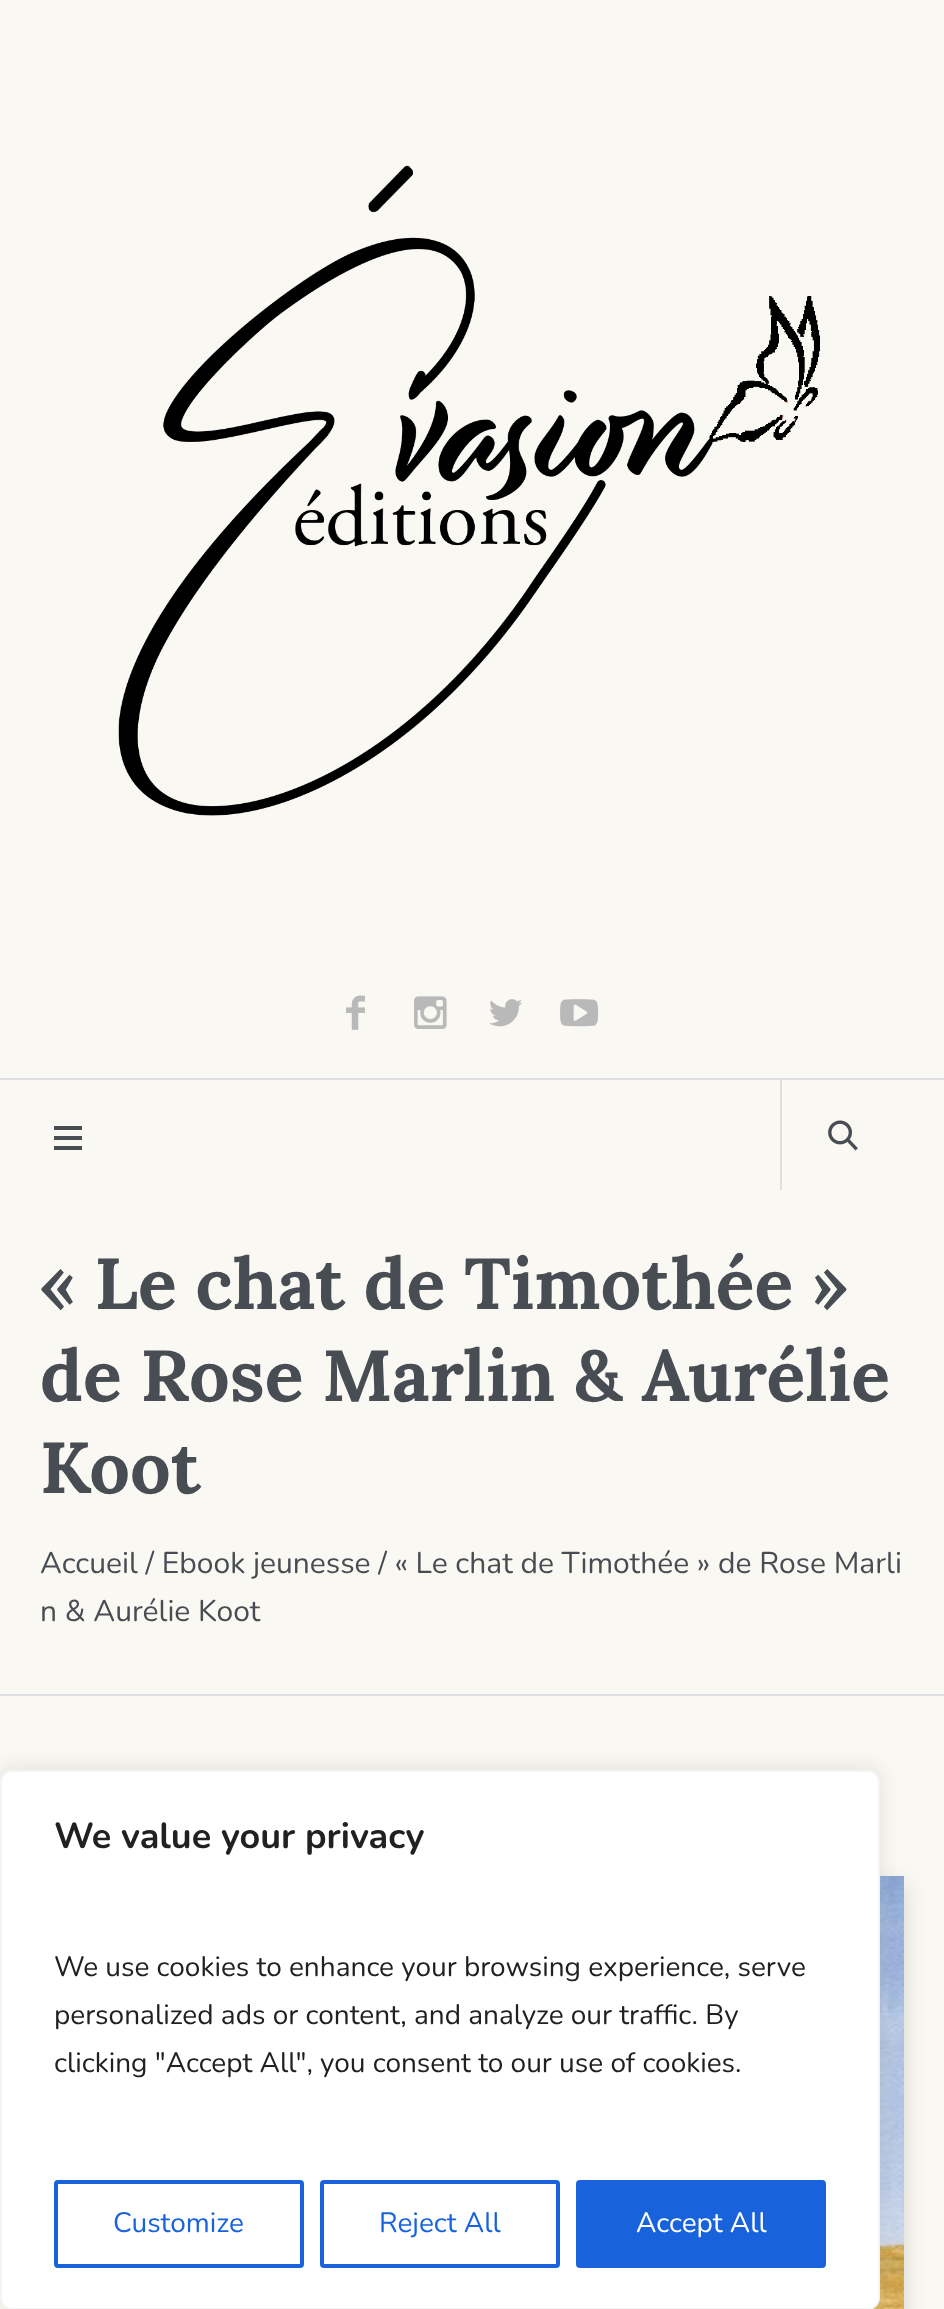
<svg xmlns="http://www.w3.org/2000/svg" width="944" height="2309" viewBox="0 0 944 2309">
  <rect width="100%" height="100%" fill="rgb(250,248,242)"/>
  <image x="118" y="165" width="702" height="651" href="pic1.png"/>
  <image x="346" y="995" width="19" height="35" href="pic2.png"/>
  <image x="414" y="996" width="33" height="33" href="pic3.png"/>
  <image x="489" y="999" width="33" height="28" href="pic4.png"/>
  <image x="560" y="999" width="39" height="28" href="pic5.png"/>
  <rect x="0" y="1078" width="944" height="2" fill="rgb(223,223,223)"/>
  <rect x="54" y="1136" width="28" height="4" fill="rgb(72,76,83)"/>
  <rect x="54" y="1126" width="28" height="4" fill="rgb(72,76,83)"/>
  <rect x="54" y="1146" width="28" height="4" fill="rgb(72,76,83)"/>
  <rect x="780" y="1080" width="2" height="110" fill="rgb(223,223,223)"/>
  <image x="828" y="1120" width="30" height="31" href="pic6.png"/>
  <rect x="0" y="1694" width="944" height="2" fill="rgb(223,223,223)"/>
  <g font-family="Lora" font-size="72" font-weight="bold" fill="rgb(72,76,83)">
    <text>
      <tspan x="40" y="1309">« Le chat de Timothée »</tspan>
      <tspan x="40" y="1401">de Rose Marlin &amp; Aurélie</tspan>
      <tspan x="40" y="1493">Koot</tspan>
    </text>
  </g>
  <g font-family="Nunito" font-size="30" fill="rgb(72,76,83)">
    <text>
      <tspan x="40" y="1573">Accueil / Ebook jeunesse / « Le chat de Timothée » de Rose Marli</tspan>
      <tspan x="40" y="1621">n &amp; Aurélie Koot</tspan>
    </text>
  </g>
  <rect x="40" y="1884" width="864" height="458" fill="rgba(0,0,0,0.14)" filter="blur(11px)"/>
  <image x="872" y="1876" width="32" height="433" href="pic7.png"/>
  <rect x="0" y="1768" width="880" height="540" rx="12" fill="rgba(172,171,171,0.3)" filter="blur(10px)"/>
  <rect x="1" y="1771" width="878" height="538" rx="11" fill="rgb(255,255,255)" stroke="rgb(244,244,244)" stroke-width="2"/>
  <text x="54" y="1848" font-family="Nunito" font-size="36" font-weight="bold" fill="rgb(33,33,33)">We value your privacy</text>
  <g font-family="Nunito" font-size="28" fill="rgb(33,33,33)">
    <text>
      <tspan x="54" y="1976">We use cookies to enhance your browsing experience, serve</tspan>
      <tspan x="54" y="2024">personalized ads or content, and analyze our traffic. By</tspan>
      <tspan x="54" y="2072">clicking "Accept All", you consent to our use of cookies.</tspan>
    </text>
  </g>
  <rect x="56" y="2182" width="246" height="84" rx="2" fill="none" stroke="rgb(24,99,220)" stroke-width="4"/>
  <text x="113" y="2232" font-family="Nunito" font-size="28" fill="rgb(24,99,220)">Customize</text>
  <rect x="322" y="2182" width="236" height="84" rx="2" fill="none" stroke="rgb(24,99,220)" stroke-width="4"/>
  <text x="379" y="2232" font-family="Nunito" font-size="28" fill="rgb(24,99,220)">Reject All</text>
  <rect x="578" y="2182" width="246" height="84" rx="2" fill="rgb(24,99,220)" stroke="rgb(24,99,220)" stroke-width="4"/>
  <text x="636" y="2232" font-family="Nunito" font-size="28" fill="rgb(255,255,255)">Accept All</text>
</svg>
